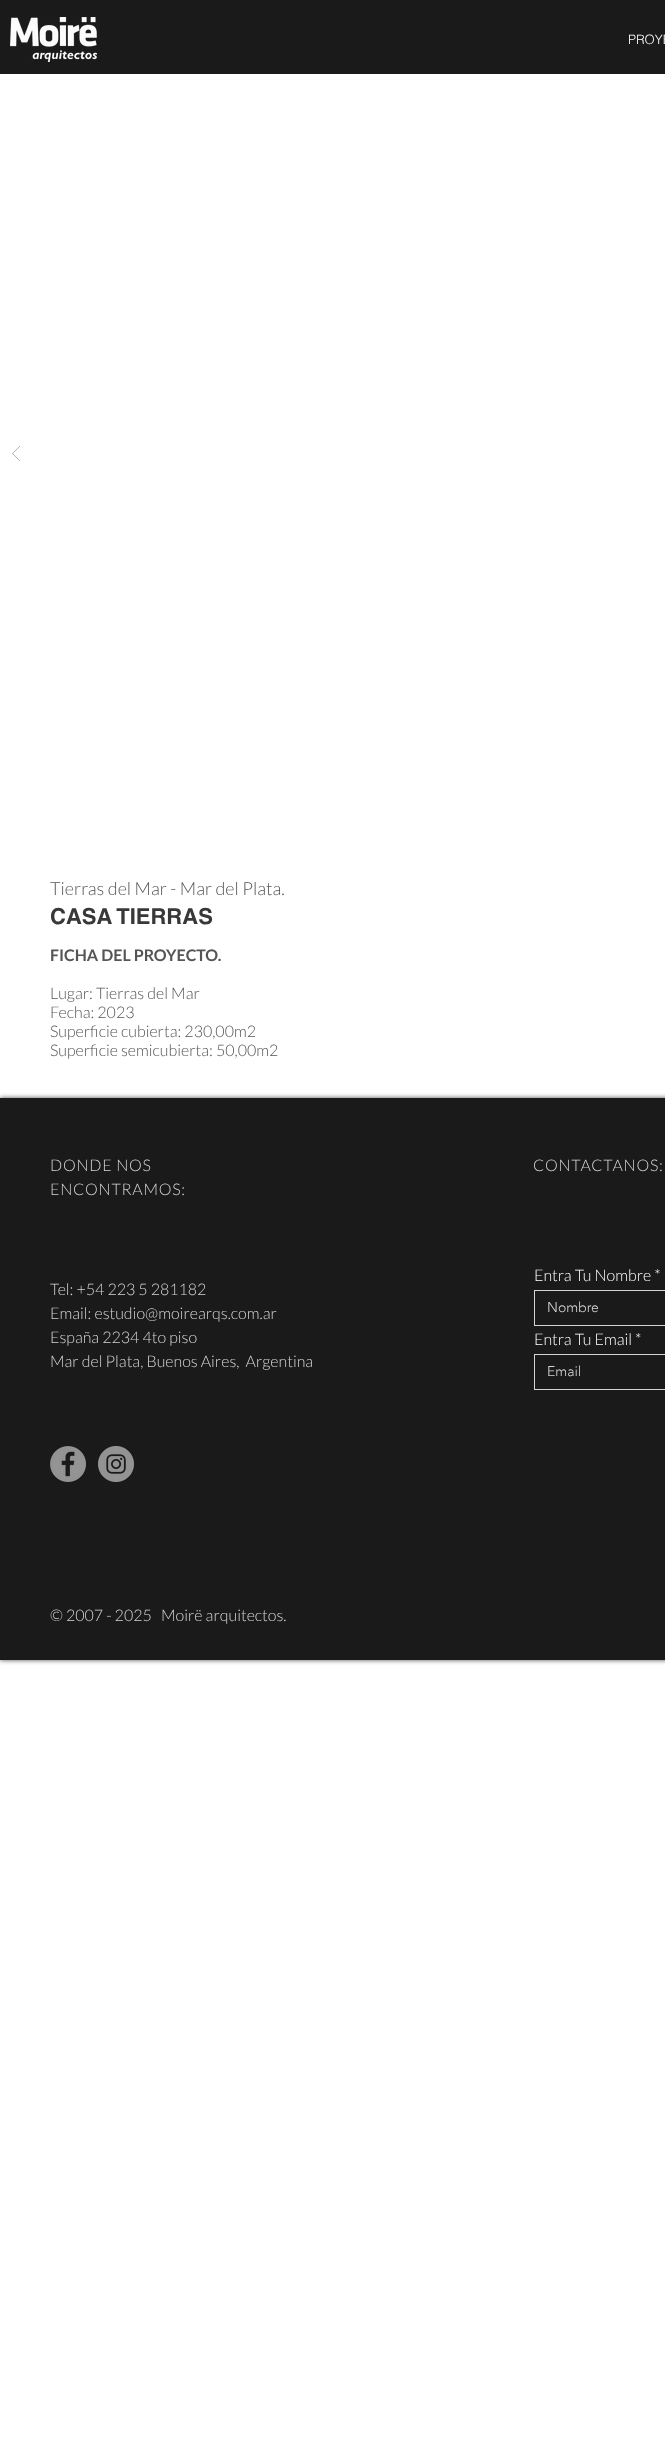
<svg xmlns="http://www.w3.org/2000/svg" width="665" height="2455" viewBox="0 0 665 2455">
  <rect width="100%" height="100%" fill="rgb(255,255,255)"/>
  <rect x="0" y="0" width="665" height="74" fill="rgb(26,26,26)"/>
  <image x="10" y="17" width="87" height="45" href="pic1.png"/>
  <text x="628" y="44" font-family="helvetica" font-size="13" font-weight="300" fill="rgb(255,255,255)">PROYE</text>
  <image x="12" y="446" width="8" height="15" href="pic2.png"/>
  <text x="50" y="895" font-family="Lato" font-size="18" font-weight="300" fill="rgb(85,85,85)">Tierras del Mar - Mar del Plata.</text>
  <text x="50" y="924" font-family="helvetica" font-size="22" font-weight="bold" fill="rgb(56,56,56)">CASA TIERRAS</text>
  <text x="50" y="961" font-family="Lato" font-size="16" font-weight="bold" fill="rgb(85,85,85)">FICHA DEL PROYECTO.</text>
  <g font-family="Lato" font-size="16" font-weight="300" fill="rgb(85,85,85)">
    <text>
      <tspan x="50" y="999">Lugar: Tierras del Mar</tspan>
      <tspan x="50" y="1018">Fecha: 2023</tspan>
      <tspan x="50" y="1037">Superficie cubierta: 230,00m2</tspan>
      <tspan x="50" y="1056">Superficie semicubierta: 50,00m2</tspan>
    </text>
  </g>
  <rect x="0" y="1098" width="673" height="562" fill="rgba(0,0,0,0.7)" filter="blur(2.5px)"/>
  <rect x="0" y="1098" width="665" height="562" fill="rgb(26,26,26)"/>
  <g font-family="Lato" font-size="16" font-weight="300" letter-spacing="0.75" fill="rgb(213,213,213)">
    <text>
      <tspan x="50" y="1171">DONDE NOS</tspan>
      <tspan x="50" y="1195">ENCONTRAMOS:</tspan>
    </text>
    <text x="533" y="1171">CONTACTANOS:</text>
  </g>
  <g font-family="Lato" font-size="16" font-weight="300" fill="rgb(213,213,213)">
    <text xml:space="preserve"><tspan x="50" y="1295">Tel: +54 223 5 281182</tspan><tspan x="50" y="1319">Email: estudio@moirearqs.com.ar</tspan><tspan x="50" y="1343">España 2234 4to piso</tspan><tspan x="50" y="1367">Mar del Plata, Buenos Aires,  Argentina</tspan></text>
  </g>
  <text x="534" y="1281" font-family="Lato" font-size="16" font-weight="300" fill="rgb(255,255,255)">Entra Tu Nombre *</text>
  <rect x="534.5" y="1290.5" width="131" height="35" fill="none" stroke="rgb(213,213,213)"/>
  <text x="547" y="1312" font-family="'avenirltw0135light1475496'" font-size="14" font-weight="300" fill="rgb(213,213,213)">Nombre</text>
  <text x="534" y="1345" font-family="Lato" font-size="16" font-weight="300" fill="rgb(255,255,255)">Entra Tu Email *</text>
  <rect x="534.5" y="1354.5" width="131" height="35" fill="none" stroke="rgb(213,213,213)"/>
  <text x="547" y="1376" font-family="'avenirltw0135light1475496'" font-size="14" font-weight="300" fill="rgb(213,213,213)">Email</text>
  <image x="50" y="1446" width="36" height="36" href="pic3.png"/>
  <image x="98" y="1446" width="36" height="36" href="pic4.png"/>
  <text x="50" y="1621" font-family="Lato" font-size="16" font-weight="300" fill="rgb(213,213,213)" xml:space="preserve">© 2007 - 2025   Moirë arquitectos.</text>
</svg>
